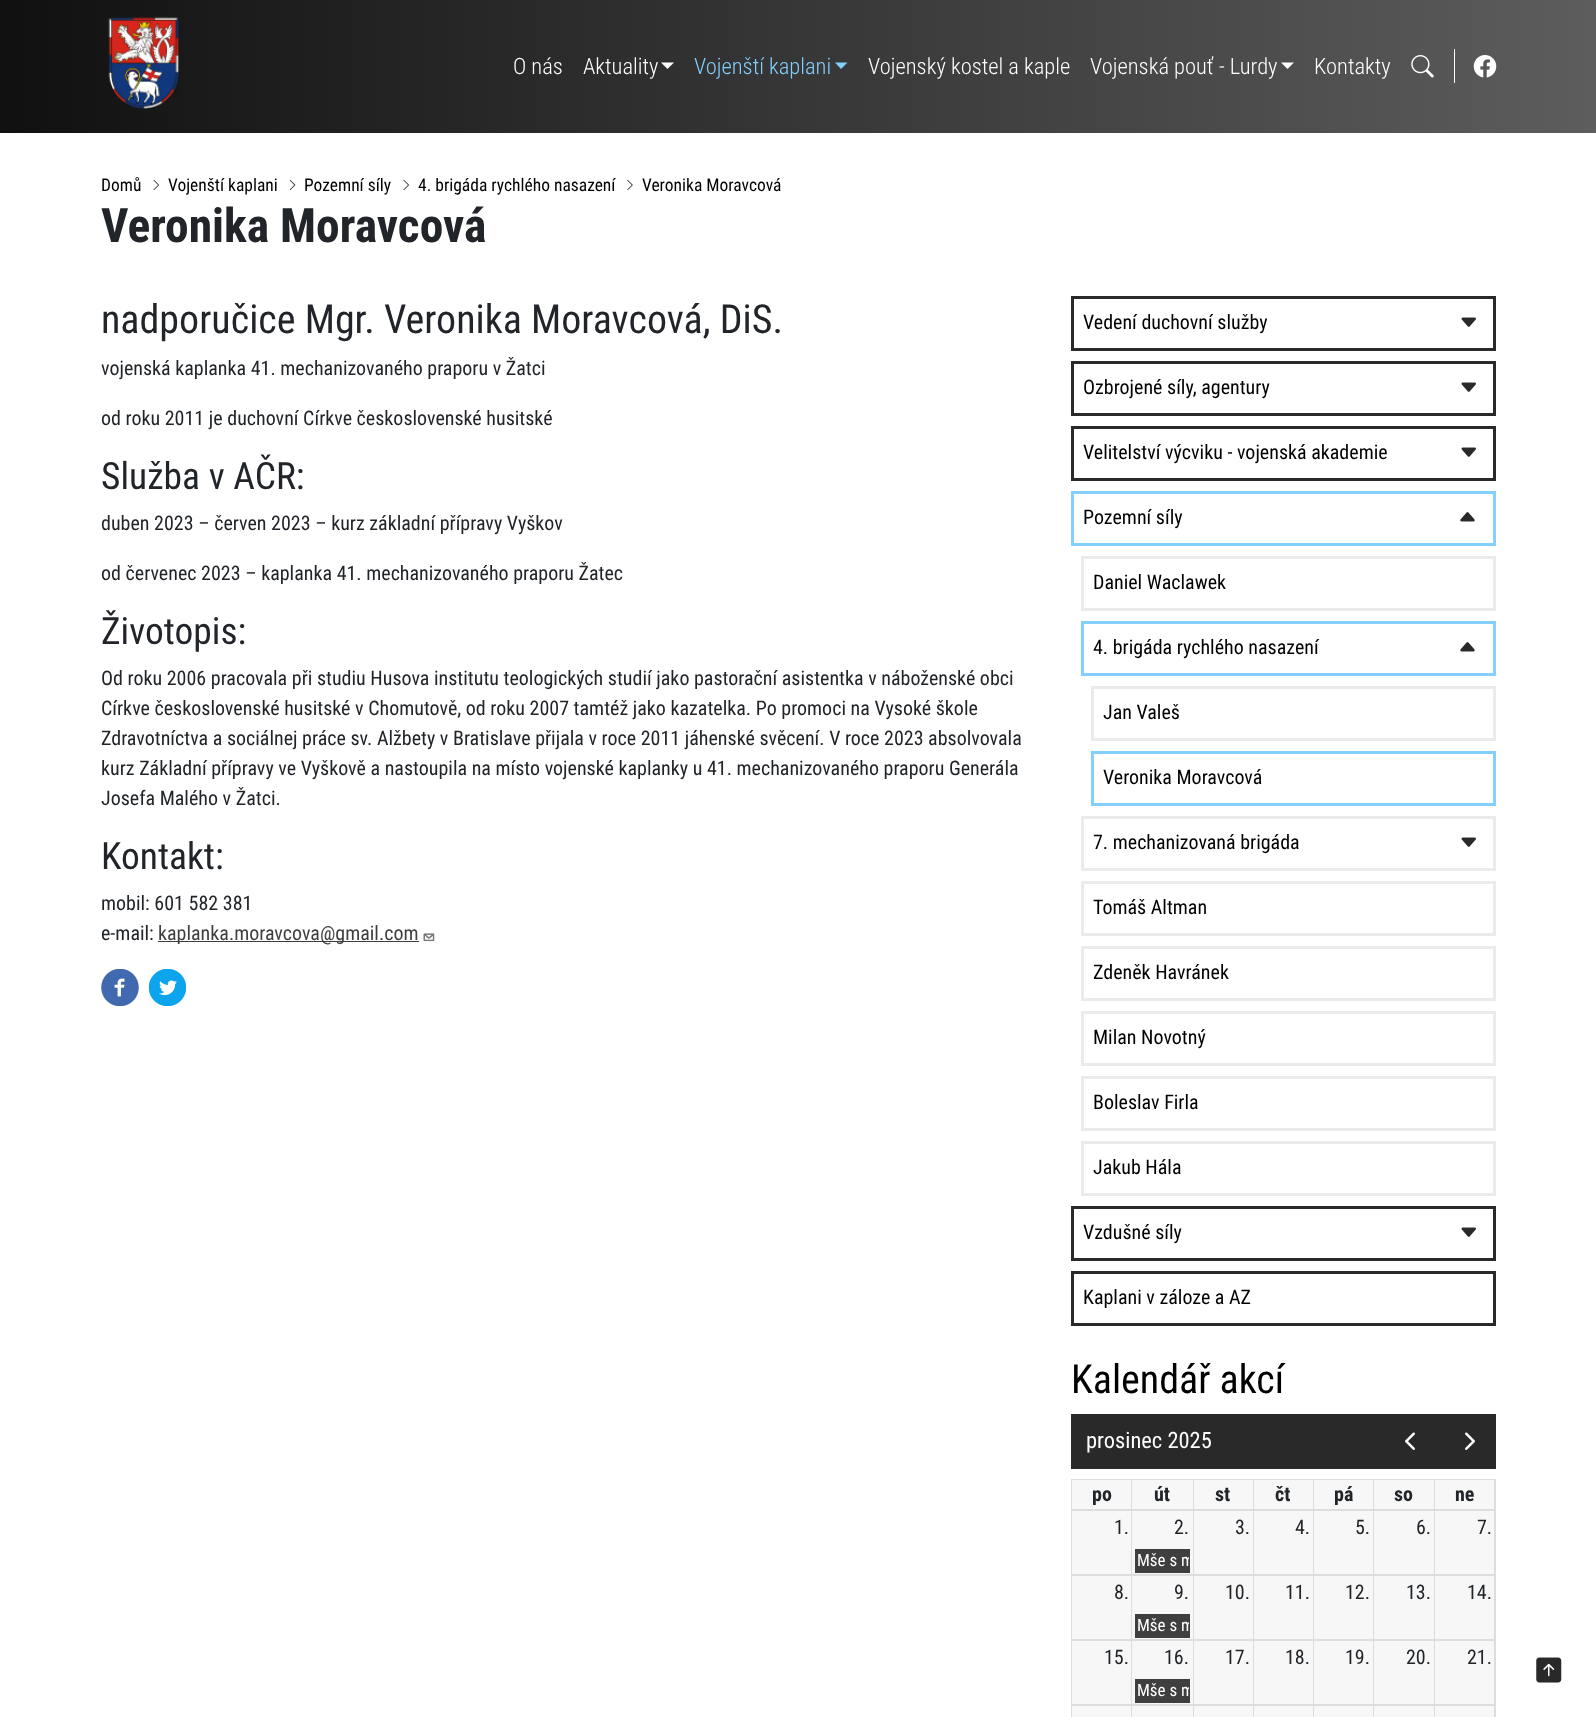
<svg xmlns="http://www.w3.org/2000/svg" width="1596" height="1717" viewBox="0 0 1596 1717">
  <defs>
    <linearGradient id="g1" gradientUnits="userSpaceOnUse" x1="0" y1="66" x2="1596" y2="66"><stop offset="0" stop-color="rgb(16,16,16)"/><stop offset="1" stop-color="rgb(93,93,93)"/></linearGradient>
    <clipPath id="clip1"><rect x="1136" y="1549" width="53" height="24"/></clipPath>
    <clipPath id="clip2"><rect x="1136" y="1614" width="53" height="24"/></clipPath>
    <clipPath id="clip3"><rect x="1136" y="1679" width="53" height="24"/></clipPath>
  </defs>
  <rect width="100%" height="100%" fill="rgb(255,255,255)"/>
  <rect x="0" y="0" width="1596" height="133" fill="url(#g1)"/>
  <image x="108" y="17" width="71" height="92" href="pic1.png"/>
  <g font-family="Roboto Condensed" font-size="22.5" font-weight="300" fill="rgb(255,255,255)">
    <text x="513" y="74">O nás</text>
    <text x="583" y="74">Aktuality</text>
  </g>
  <path d="M661 62.5H674L667.5 69Z" fill="rgb(255,255,255)"/>
  <text x="694" y="74" font-family="Roboto Condensed" font-size="22.5" font-weight="300" fill="rgb(131,208,255)">Vojenští kaplani</text>
  <path d="M835 62.5H847.5L841 69Z" fill="rgb(131,208,255)"/>
  <g font-family="Roboto Condensed" font-size="22.5" font-weight="300" fill="rgb(255,255,255)">
    <text x="868" y="74">Vojenský kostel a kaple</text>
    <text x="1090" y="74">Vojenská pouť - Lurdy</text>
  </g>
  <path d="M1281 62.5H1294L1287.5 69Z" fill="rgb(255,255,255)"/>
  <text x="1314" y="74" font-family="Roboto Condensed" font-size="22.5" font-weight="300" fill="rgb(255,255,255)">Kontakty</text>
  <image x="1411" y="55" width="23" height="23" href="pic2.png"/>
  <rect x="1454" y="49" width="1" height="34" fill="rgb(255,255,255)"/>
  <image x="1473" y="55" width="24" height="23" href="pic3.png"/>
  <text x="101" y="191" font-family="Roboto Condensed" font-size="17.5" fill="rgb(0,0,0)">Domů</text>
  <image x="153" y="180" width="6" height="10" href="pic4.png"/>
  <text x="168" y="191" font-family="Roboto Condensed" font-size="17.5" fill="rgb(0,0,0)">Vojenští kaplani</text>
  <image x="289" y="180" width="7" height="10" href="pic5.png"/>
  <text x="304" y="191" font-family="Roboto Condensed" font-size="17.5" fill="rgb(0,0,0)">Pozemní síly</text>
  <image x="403" y="180" width="6" height="10" href="pic4.png"/>
  <text x="418" y="191" font-family="Roboto Condensed" font-size="17.5" fill="rgb(0,0,0)">4. brigáda rychlého nasazení</text>
  <image x="627" y="180" width="6" height="10" href="pic6.png"/>
  <text x="642" y="191" font-family="Roboto Condensed" font-size="17.5" fill="rgb(0,0,0)">Veronika Moravcová</text>
  <text x="101" y="242" font-family="Roboto Condensed" font-size="47.5" font-weight="bold" fill="rgb(33,37,41)">Veronika Moravcová</text>
  <text x="101" y="333" font-family="Roboto Condensed" font-size="40" fill="rgb(33,37,41)">nadporučice Mgr. Veronika Moravcová, DiS.</text>
  <g font-family="Roboto Condensed" font-size="20" fill="rgb(33,37,41)">
    <text x="101" y="375">vojenská kaplanka 41. mechanizovaného praporu v Žatci</text>
    <text x="101" y="425">od roku 2011 je duchovní Církve československé husitské</text>
  </g>
  <text x="101" y="489" font-family="Roboto Condensed" font-size="37.5" fill="rgb(33,37,41)">Služba v AČR:</text>
  <g font-family="Roboto Condensed" font-size="20" fill="rgb(33,37,41)">
    <text x="101" y="530">duben 2023 – červen 2023 – kurz základní přípravy Vyškov</text>
    <text x="101" y="580">od červenec 2023 – kaplanka 41. mechanizovaného praporu Žatec</text>
  </g>
  <text x="101" y="644" font-family="Roboto Condensed" font-size="37.5" fill="rgb(33,37,41)">Životopis:</text>
  <g font-family="Roboto Condensed" font-size="20" fill="rgb(33,37,41)">
    <text>
      <tspan x="101" y="685">Od roku 2006 pracovala při studiu Husova institutu teologických studií jako pastorační asistentka v náboženské obci</tspan>
      <tspan x="101" y="715">Církve československé husitské v Chomutově, od roku 2007 tamtéž jako kazatelka. Po promoci na Vysoké škole</tspan>
      <tspan x="101" y="745">Zdravotníctva a sociálnej práce sv. Alžbety v Bratislave přijala v roce 2011 jáhenské svěcení. V roce 2023 absolvovala</tspan>
      <tspan x="101" y="775">kurz Základní přípravy ve Vyškově a nastoupila na místo vojenské kaplanky u 41. mechanizovaného praporu Generála</tspan>
      <tspan x="101" y="805">Josefa Malého v Žatci.</tspan>
    </text>
  </g>
  <text x="101" y="869" font-family="Roboto Condensed" font-size="37.5" fill="rgb(33,37,41)">Kontakt:</text>
  <g font-family="Roboto Condensed" font-size="20" fill="rgb(33,37,41)">
    <text>
      <tspan x="101" y="910">mobil: 601 582 381</tspan>
      <tspan x="101" y="940">e-mail:</tspan>
    </text>
  </g>
  <rect x="158" y="941" width="261" height="1" fill="rgb(63,63,63)"/>
  <text x="158" y="940" font-family="Roboto Condensed" font-size="20" fill="rgb(63,63,63)">kaplanka.moravcova@gmail.com</text>
  <image x="423" y="933" width="12" height="9" href="pic7.png"/>
  <image x="101" y="969" width="38" height="37" href="pic8.png"/>
  <image x="149" y="969" width="37" height="37" href="pic9.png"/>
  <rect x="1072.5" y="297.5" width="422" height="52" fill="none" stroke="rgb(41,41,41)" stroke-width="3"/>
  <text x="1083" y="329" font-family="Roboto Condensed" font-size="20" fill="rgb(0,0,0)">Vedení duchovní služby</text>
  <image x="1461" y="317" width="15" height="10" href="pic10.png"/>
  <rect x="1072.5" y="362.5" width="422" height="52" fill="none" stroke="rgb(41,41,41)" stroke-width="3"/>
  <text x="1083" y="394" font-family="Roboto Condensed" font-size="20" fill="rgb(0,0,0)">Ozbrojené síly, agentury</text>
  <image x="1461" y="382" width="15" height="10" href="pic10.png"/>
  <rect x="1072.5" y="427.5" width="422" height="52" fill="none" stroke="rgb(41,41,41)" stroke-width="3"/>
  <text x="1083" y="459" font-family="Roboto Condensed" font-size="20" fill="rgb(0,0,0)">Velitelství výcviku - vojenská akademie</text>
  <image x="1461" y="447" width="15" height="10" href="pic10.png"/>
  <rect x="1072.5" y="492.5" width="422" height="52" fill="none" stroke="rgb(131,208,255)" stroke-width="3"/>
  <text x="1083" y="524" font-family="Roboto Condensed" font-size="20" fill="rgb(0,0,0)">Pozemní síly</text>
  <image x="1460" y="512" width="15" height="10" href="pic11.png"/>
  <rect x="1082.5" y="557.5" width="412" height="52" fill="none" stroke="rgb(235,235,235)" stroke-width="3"/>
  <text x="1093" y="589" font-family="Roboto Condensed" font-size="20" fill="rgb(0,0,0)">Daniel Waclawek</text>
  <rect x="1082.5" y="622.5" width="412" height="52" fill="none" stroke="rgb(131,208,255)" stroke-width="3"/>
  <text x="1093" y="654" font-family="Roboto Condensed" font-size="20" fill="rgb(0,0,0)">4. brigáda rychlého nasazení</text>
  <image x="1460" y="642" width="15" height="10" href="pic11.png"/>
  <rect x="1092.5" y="687.5" width="402" height="52" fill="none" stroke="rgb(235,235,235)" stroke-width="3"/>
  <text x="1103" y="719" font-family="Roboto Condensed" font-size="20" fill="rgb(0,0,0)">Jan Valeš</text>
  <rect x="1092.5" y="752.5" width="402" height="52" fill="none" stroke="rgb(131,208,255)" stroke-width="3"/>
  <text x="1103" y="784" font-family="Roboto Condensed" font-size="20" fill="rgb(0,0,0)">Veronika Moravcová</text>
  <rect x="1082.5" y="817.5" width="412" height="52" fill="none" stroke="rgb(235,235,235)" stroke-width="3"/>
  <text x="1093" y="849" font-family="Roboto Condensed" font-size="20" fill="rgb(0,0,0)">7. mechanizovaná brigáda</text>
  <image x="1461" y="837" width="15" height="10" href="pic10.png"/>
  <rect x="1082.5" y="882.5" width="412" height="52" fill="none" stroke="rgb(235,235,235)" stroke-width="3"/>
  <text x="1093" y="914" font-family="Roboto Condensed" font-size="20" fill="rgb(0,0,0)">Tomáš Altman</text>
  <rect x="1082.5" y="947.5" width="412" height="52" fill="none" stroke="rgb(235,235,235)" stroke-width="3"/>
  <text x="1093" y="979" font-family="Roboto Condensed" font-size="20" fill="rgb(0,0,0)">Zdeněk Havránek</text>
  <rect x="1082.5" y="1012.5" width="412" height="52" fill="none" stroke="rgb(235,235,235)" stroke-width="3"/>
  <text x="1093" y="1044" font-family="Roboto Condensed" font-size="20" fill="rgb(0,0,0)">Milan Novotný</text>
  <rect x="1082.5" y="1077.5" width="412" height="52" fill="none" stroke="rgb(235,235,235)" stroke-width="3"/>
  <text x="1093" y="1109" font-family="Roboto Condensed" font-size="20" fill="rgb(0,0,0)">Boleslav Firla</text>
  <rect x="1082.5" y="1142.5" width="412" height="52" fill="none" stroke="rgb(235,235,235)" stroke-width="3"/>
  <text x="1093" y="1174" font-family="Roboto Condensed" font-size="20" fill="rgb(0,0,0)">Jakub Hála</text>
  <rect x="1072.5" y="1207.5" width="422" height="52" fill="none" stroke="rgb(41,41,41)" stroke-width="3"/>
  <text x="1083" y="1239" font-family="Roboto Condensed" font-size="20" fill="rgb(0,0,0)">Vzdušné síly</text>
  <image x="1461" y="1227" width="15" height="10" href="pic10.png"/>
  <rect x="1072.5" y="1272.5" width="422" height="52" fill="none" stroke="rgb(41,41,41)" stroke-width="3"/>
  <text x="1083" y="1304" font-family="Roboto Condensed" font-size="20" fill="rgb(0,0,0)">Kaplani v záloze a AZ</text>
  <text x="1071" y="1393" font-family="Roboto Condensed" font-size="40" fill="rgb(0,0,0)">Kalendář akcí</text>
  <rect x="1071" y="1414" width="425" height="55" fill="rgb(41,41,41)"/>
  <text x="1086" y="1448" font-family="Roboto Condensed" font-size="22.5" fill="rgb(255,255,255)">prosinec 2025</text>
  <image x="1405" y="1432" width="10" height="18" href="pic12.png"/>
  <image x="1465" y="1432" width="10" height="18" href="pic13.png"/>
  <rect x="1072" y="1480" width="422" height="237" fill="rgb(247,247,247)"/>
  <rect x="1071" y="1479" width="425" height="1" fill="rgb(221,221,221)"/>
  <rect x="1071" y="1510" width="425" height="1" fill="rgb(221,221,221)"/>
  <rect x="1495" y="1510" width="1" height="207" fill="rgb(221,221,221)"/>
  <rect x="1495" y="1479" width="1" height="32" fill="rgb(221,221,221)"/>
  <rect x="1071" y="1510" width="1" height="207" fill="rgb(221,221,221)"/>
  <rect x="1071" y="1479" width="1" height="32" fill="rgb(221,221,221)"/>
  <rect x="1494" y="1479" width="1" height="96" fill="rgb(221,221,221)"/>
  <rect x="1434" y="1509" width="61" height="1" fill="rgb(221,221,221)"/>
  <rect x="1434" y="1479" width="1" height="31" fill="rgb(221,221,221)"/>
  <rect x="1373" y="1509" width="62" height="1" fill="rgb(221,221,221)"/>
  <rect x="1373" y="1479" width="1" height="31" fill="rgb(221,221,221)"/>
  <rect x="1313" y="1509" width="61" height="1" fill="rgb(221,221,221)"/>
  <rect x="1313" y="1479" width="1" height="31" fill="rgb(221,221,221)"/>
  <rect x="1253" y="1509" width="61" height="1" fill="rgb(221,221,221)"/>
  <rect x="1253" y="1479" width="1" height="31" fill="rgb(221,221,221)"/>
  <rect x="1193" y="1509" width="61" height="1" fill="rgb(221,221,221)"/>
  <rect x="1193" y="1479" width="1" height="31" fill="rgb(221,221,221)"/>
  <rect x="1131" y="1509" width="63" height="1" fill="rgb(221,221,221)"/>
  <rect x="1131" y="1479" width="1" height="31" fill="rgb(221,221,221)"/>
  <rect x="1071" y="1509" width="62" height="1" fill="rgb(221,221,221)"/>
  <g font-family="Roboto Condensed" font-size="20" font-weight="bold" fill="rgb(33,37,41)">
    <text x="1092" y="1501">po</text>
    <text x="1154" y="1501">út</text>
    <text x="1215" y="1501">st</text>
    <text x="1275" y="1501">čt</text>
    <text x="1334" y="1501">pá</text>
    <text x="1394" y="1501">so</text>
    <text x="1455" y="1501">ne</text>
  </g>
  <rect x="1434" y="1574" width="61" height="2" fill="rgb(221,221,221)"/>
  <rect x="1434" y="1510" width="1" height="65" fill="rgb(221,221,221)"/>
  <rect x="1373" y="1574" width="62" height="1" fill="rgb(221,221,221)"/>
  <rect x="1373" y="1510" width="1" height="65" fill="rgb(221,221,221)"/>
  <rect x="1313" y="1574" width="61" height="1" fill="rgb(221,221,221)"/>
  <rect x="1313" y="1510" width="1" height="65" fill="rgb(221,221,221)"/>
  <rect x="1253" y="1574" width="61" height="1" fill="rgb(221,221,221)"/>
  <rect x="1253" y="1510" width="1" height="65" fill="rgb(221,221,221)"/>
  <rect x="1193" y="1574" width="61" height="1" fill="rgb(221,221,221)"/>
  <rect x="1193" y="1510" width="1" height="65" fill="rgb(221,221,221)"/>
  <rect x="1131" y="1574" width="63" height="1" fill="rgb(221,221,221)"/>
  <rect x="1131" y="1510" width="1" height="65" fill="rgb(221,221,221)"/>
  <rect x="1071" y="1574" width="62" height="1" fill="rgb(221,221,221)"/>
  <g font-family="Roboto Condensed" font-size="20" fill="rgb(33,37,41)">
    <text x="1114" y="1534">1.</text>
    <text x="1174" y="1534">2.</text>
    <text x="1235" y="1534">3.</text>
    <text x="1295" y="1534">4.</text>
    <text x="1355" y="1534">5.</text>
    <text x="1416" y="1534">6.</text>
    <text x="1477" y="1534">7.</text>
  </g>
  <rect x="1135" y="1549" width="55" height="24" fill="rgb(63,63,63)"/>
  <g clip-path="url(#clip1)">
    <text x="1137" y="1566" font-family="Roboto Condensed" font-size="17" fill="rgb(255,255,255)">Mše s m</text>
  </g>
  <rect x="1494" y="1575" width="1" height="65" fill="rgb(221,221,221)"/>
  <rect x="1434" y="1639" width="61" height="2" fill="rgb(221,221,221)"/>
  <rect x="1434" y="1575" width="1" height="65" fill="rgb(221,221,221)"/>
  <rect x="1373" y="1575" width="62" height="1" fill="rgb(221,221,221)"/>
  <rect x="1373" y="1639" width="62" height="1" fill="rgb(221,221,221)"/>
  <rect x="1373" y="1575" width="1" height="65" fill="rgb(221,221,221)"/>
  <rect x="1313" y="1575" width="61" height="1" fill="rgb(221,221,221)"/>
  <rect x="1313" y="1639" width="61" height="1" fill="rgb(221,221,221)"/>
  <rect x="1313" y="1575" width="1" height="65" fill="rgb(221,221,221)"/>
  <rect x="1253" y="1575" width="61" height="1" fill="rgb(221,221,221)"/>
  <rect x="1253" y="1639" width="61" height="1" fill="rgb(221,221,221)"/>
  <rect x="1253" y="1575" width="1" height="65" fill="rgb(221,221,221)"/>
  <rect x="1193" y="1575" width="61" height="1" fill="rgb(221,221,221)"/>
  <rect x="1193" y="1639" width="61" height="1" fill="rgb(221,221,221)"/>
  <rect x="1193" y="1575" width="1" height="65" fill="rgb(221,221,221)"/>
  <rect x="1131" y="1575" width="63" height="1" fill="rgb(221,221,221)"/>
  <rect x="1131" y="1639" width="63" height="1" fill="rgb(221,221,221)"/>
  <rect x="1131" y="1575" width="1" height="65" fill="rgb(221,221,221)"/>
  <rect x="1071" y="1575" width="62" height="1" fill="rgb(221,221,221)"/>
  <rect x="1071" y="1639" width="62" height="1" fill="rgb(221,221,221)"/>
  <g font-family="Roboto Condensed" font-size="20" fill="rgb(33,37,41)">
    <text x="1114" y="1599">8.</text>
    <text x="1174" y="1599">9.</text>
    <text x="1225" y="1599">10.</text>
    <text x="1285" y="1599">11.</text>
    <text x="1345" y="1599">12.</text>
    <text x="1406" y="1599">13.</text>
    <text x="1467" y="1599">14.</text>
  </g>
  <rect x="1135" y="1614" width="55" height="24" fill="rgb(63,63,63)"/>
  <g clip-path="url(#clip2)">
    <text x="1137" y="1631" font-family="Roboto Condensed" font-size="17" fill="rgb(255,255,255)">Mše s m</text>
  </g>
  <rect x="1494" y="1640" width="1" height="65" fill="rgb(221,221,221)"/>
  <rect x="1434" y="1704" width="61" height="2" fill="rgb(221,221,221)"/>
  <rect x="1434" y="1640" width="1" height="77" fill="rgb(221,221,221)"/>
  <rect x="1373" y="1640" width="62" height="1" fill="rgb(221,221,221)"/>
  <rect x="1373" y="1704" width="62" height="2" fill="rgb(221,221,221)"/>
  <rect x="1373" y="1640" width="1" height="77" fill="rgb(221,221,221)"/>
  <rect x="1313" y="1640" width="61" height="1" fill="rgb(221,221,221)"/>
  <rect x="1313" y="1704" width="61" height="2" fill="rgb(221,221,221)"/>
  <rect x="1313" y="1640" width="1" height="77" fill="rgb(221,221,221)"/>
  <rect x="1253" y="1640" width="61" height="1" fill="rgb(221,221,221)"/>
  <rect x="1253" y="1704" width="61" height="2" fill="rgb(221,221,221)"/>
  <rect x="1253" y="1640" width="1" height="77" fill="rgb(221,221,221)"/>
  <rect x="1193" y="1640" width="61" height="1" fill="rgb(221,221,221)"/>
  <rect x="1193" y="1704" width="61" height="2" fill="rgb(221,221,221)"/>
  <rect x="1193" y="1640" width="1" height="77" fill="rgb(221,221,221)"/>
  <rect x="1131" y="1640" width="63" height="1" fill="rgb(221,221,221)"/>
  <rect x="1131" y="1704" width="63" height="2" fill="rgb(221,221,221)"/>
  <rect x="1131" y="1640" width="1" height="77" fill="rgb(221,221,221)"/>
  <rect x="1071" y="1640" width="62" height="1" fill="rgb(221,221,221)"/>
  <rect x="1071" y="1704" width="62" height="2" fill="rgb(221,221,221)"/>
  <g font-family="Roboto Condensed" font-size="20" fill="rgb(33,37,41)">
    <text x="1104" y="1664">15.</text>
    <text x="1164" y="1664">16.</text>
    <text x="1225" y="1664">17.</text>
    <text x="1285" y="1664">18.</text>
    <text x="1345" y="1664">19.</text>
    <text x="1406" y="1664">20.</text>
    <text x="1467" y="1664">21.</text>
  </g>
  <rect x="1135" y="1679" width="55" height="24" fill="rgb(63,63,63)"/>
  <g clip-path="url(#clip3)">
    <text x="1137" y="1696" font-family="Roboto Condensed" font-size="17" fill="rgb(255,255,255)">Mše s m</text>
  </g>
  <rect x="1494" y="1705" width="1" height="12" fill="rgb(221,221,221)"/>
  <image x="1536" y="1657" width="26" height="26" href="pic14.png"/>
</svg>
